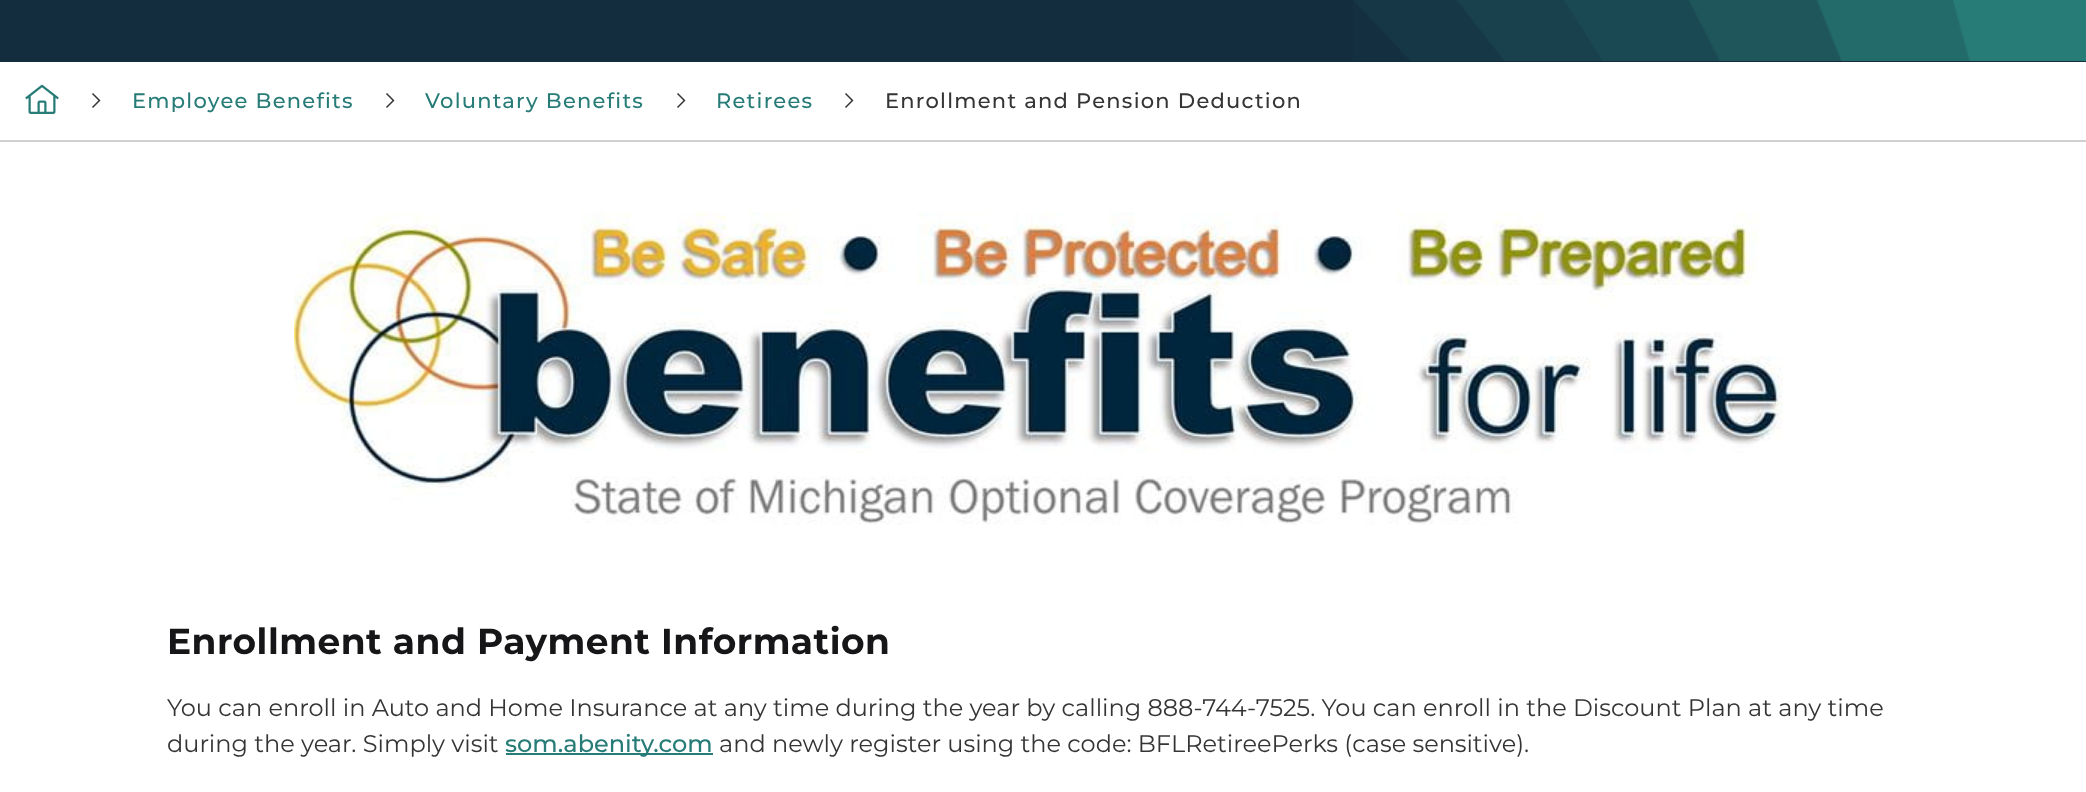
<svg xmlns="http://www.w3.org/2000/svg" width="2086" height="792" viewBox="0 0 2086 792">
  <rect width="100%" height="100%" fill="rgb(255,255,255)"/>
  <rect x="0" y="0" width="2086" height="62" fill="rgb(20,45,62)"/>
  <image x="1353" y="0" width="733" height="61" href="pic1.png"/>
  <rect x="0" y="140" width="2086" height="2" fill="rgb(208,208,208)"/>
  <image x="25" y="84" width="34" height="30" href="pic2.png"/>
  <image x="92" y="93" width="9" height="15" href="pic3.png"/>
  <text x="132" y="108" font-family="Montserrat" font-size="21" font-weight="500" letter-spacing="1.25" fill="rgb(39,124,120)">Employee Benefits</text>
  <image x="386" y="93" width="9" height="15" href="pic3.png"/>
  <text x="425" y="108" font-family="Montserrat" font-size="21" font-weight="500" letter-spacing="1.25" fill="rgb(39,124,120)">Voluntary Benefits</text>
  <image x="677" y="93" width="9" height="15" href="pic3.png"/>
  <text x="716" y="108" font-family="Montserrat" font-size="21" font-weight="500" letter-spacing="1.25" fill="rgb(39,124,120)">Retirees</text>
  <image x="845" y="93" width="9" height="15" href="pic3.png"/>
  <text x="885" y="108" font-family="Montserrat" font-size="21" font-weight="500" letter-spacing="1.25" fill="rgb(53,53,53)">Enrollment and Pension Deduction</text>
  <image x="294" y="212" width="1489" height="313" href="pic4.png"/>
  <text x="167" y="654" font-family="Montserrat" font-size="36" font-weight="bold" letter-spacing="0.45" fill="rgb(22,22,24)">Enrollment and Payment Information</text>
  <g font-family="Montserrat" font-size="24" fill="rgb(53,53,53)">
    <text>
      <tspan x="167" y="716">You can enroll in Auto and Home Insurance at any time during the year by calling 888-744-7525. You can enroll in the Discount Plan at any time</tspan>
      <tspan x="167" y="752">during the year. Simply visit</tspan>
    </text>
  </g>
  <rect x="506" y="753" width="207" height="2" fill="rgb(39,124,120)"/>
  <text x="505" y="752" font-family="Montserrat" font-size="24" font-weight="500" fill="rgb(39,124,120)">som.abenity.com</text>
  <text x="719" y="752" font-family="Montserrat" font-size="24" fill="rgb(53,53,53)">and newly register using the code: BFLRetireePerks (case sensitive).</text>
</svg>
